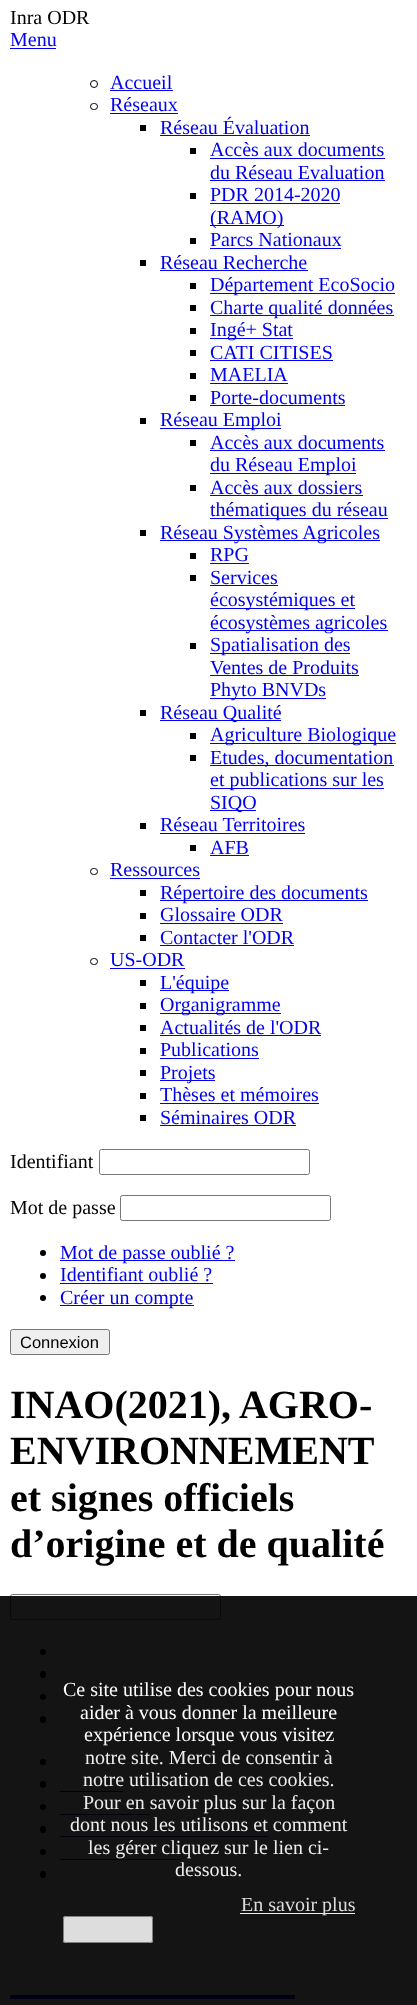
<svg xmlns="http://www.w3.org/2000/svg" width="417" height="2005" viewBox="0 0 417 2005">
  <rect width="100%" height="100%" fill="rgb(255,255,255)"/>
  <text x="10" y="24" font-family="Liberation Serif" font-size="20" fill="rgb(0,0,0)">Inra ODR</text>
  <text x="10" y="46" font-family="Liberation Serif" font-size="20" fill="rgb(0,0,238)">Menu</text>
  <rect x="10" y="48" width="46" height="1" fill="rgb(0,0,238)"/>
  <circle cx="94" cy="84" r="3.5" fill="none" stroke="rgb(0,0,0)"/>
  <text x="110" y="89" font-family="Liberation Serif" font-size="20" fill="rgb(0,0,238)">Accueil</text>
  <rect x="110" y="90" width="63" height="1" fill="rgb(0,0,238)"/>
  <rect x="90.5" y="103.5" width="7" height="6" rx="3" fill="none" stroke="rgb(0,0,0)"/>
  <text x="110" y="111" font-family="Liberation Serif" font-size="20" fill="rgb(0,0,238)">Réseaux</text>
  <rect x="110" y="113" width="68" height="1" fill="rgb(0,0,238)"/>
  <rect x="140" y="125" width="6" height="6" fill="rgb(0,0,0)"/>
  <text x="160" y="134" font-family="Liberation Serif" font-size="20" fill="rgb(0,0,238)">Réseau Évaluation</text>
  <rect x="160" y="135" width="150" height="1" fill="rgb(0,0,238)"/>
  <rect x="190" y="148" width="6" height="6" fill="rgb(0,0,0)"/>
  <text x="210" y="156" font-family="Liberation Serif" font-size="20" fill="rgb(0,0,238)">Accès aux documents</text>
  <rect x="210" y="158" width="175" height="1" fill="rgb(0,0,238)"/>
  <text x="210" y="179" font-family="Liberation Serif" font-size="20" fill="rgb(0,0,238)">du Réseau Evaluation</text>
  <rect x="210" y="180" width="175" height="1" fill="rgb(0,0,238)"/>
  <rect x="190" y="193" width="6" height="6" fill="rgb(0,0,0)"/>
  <text x="210" y="201" font-family="Liberation Serif" font-size="20" fill="rgb(0,0,238)">PDR 2014-2020</text>
  <rect x="210" y="203" width="130" height="1" fill="rgb(0,0,238)"/>
  <rect x="210" y="225" width="74" height="1" fill="rgb(0,0,238)"/>
  <text x="210" y="224" font-family="Liberation Serif" font-size="20" fill="rgb(0,0,238)">(RAMO)</text>
  <rect x="190" y="238" width="6" height="6" fill="rgb(0,0,0)"/>
  <text x="210" y="246" font-family="Liberation Serif" font-size="20" fill="rgb(0,0,238)">Parcs Nationaux</text>
  <rect x="210" y="248" width="131" height="1" fill="rgb(0,0,238)"/>
  <rect x="140" y="260" width="6" height="6" fill="rgb(0,0,0)"/>
  <text x="160" y="269" font-family="Liberation Serif" font-size="20" fill="rgb(0,0,238)">Réseau Recherche</text>
  <rect x="160" y="270" width="148" height="1" fill="rgb(0,0,238)"/>
  <rect x="190" y="283" width="6" height="6" fill="rgb(0,0,0)"/>
  <rect x="210" y="293" width="185" height="1" fill="rgb(0,0,238)"/>
  <text x="210" y="291" font-family="Liberation Serif" font-size="20" fill="rgb(0,0,238)">Département EcoSocio</text>
  <rect x="190" y="305" width="6" height="6" fill="rgb(0,0,0)"/>
  <rect x="210" y="315" width="184" height="1" fill="rgb(0,0,238)"/>
  <text x="210" y="314" font-family="Liberation Serif" font-size="20" fill="rgb(0,0,238)">Charte qualité données</text>
  <rect x="190" y="328" width="6" height="6" fill="rgb(0,0,0)"/>
  <rect x="210" y="338" width="83" height="1" fill="rgb(0,0,238)"/>
  <text x="210" y="336" font-family="Liberation Serif" font-size="20" fill="rgb(0,0,238)">Ingé+ Stat</text>
  <rect x="190" y="350" width="6" height="6" fill="rgb(0,0,0)"/>
  <text x="210" y="359" font-family="Liberation Serif" font-size="20" fill="rgb(0,0,238)">CATI CITISES</text>
  <rect x="210" y="360" width="123" height="1" fill="rgb(0,0,238)"/>
  <rect x="190" y="373" width="6" height="6" fill="rgb(0,0,0)"/>
  <text x="210" y="381" font-family="Liberation Serif" font-size="20" fill="rgb(0,0,238)">MAELIA</text>
  <rect x="210" y="383" width="78" height="1" fill="rgb(0,0,238)"/>
  <rect x="190" y="395" width="6" height="6" fill="rgb(0,0,0)"/>
  <text x="210" y="404" font-family="Liberation Serif" font-size="20" fill="rgb(0,0,238)">Porte-documents</text>
  <rect x="210" y="405" width="135" height="1" fill="rgb(0,0,238)"/>
  <rect x="140" y="418" width="6" height="6" fill="rgb(0,0,0)"/>
  <rect x="160" y="428" width="121" height="1" fill="rgb(0,0,238)"/>
  <text x="160" y="426" font-family="Liberation Serif" font-size="20" fill="rgb(0,0,238)">Réseau Emploi</text>
  <rect x="190" y="440" width="6" height="6" fill="rgb(0,0,0)"/>
  <text x="210" y="449" font-family="Liberation Serif" font-size="20" fill="rgb(0,0,238)">Accès aux documents</text>
  <rect x="210" y="450" width="175" height="1" fill="rgb(0,0,238)"/>
  <rect x="210" y="473" width="146" height="1" fill="rgb(0,0,238)"/>
  <text x="210" y="471" font-family="Liberation Serif" font-size="20" fill="rgb(0,0,238)">du Réseau Emploi</text>
  <rect x="190" y="485" width="6" height="6" fill="rgb(0,0,0)"/>
  <text x="210" y="494" font-family="Liberation Serif" font-size="20" fill="rgb(0,0,238)">Accès aux dossiers</text>
  <rect x="210" y="495" width="153" height="1" fill="rgb(0,0,238)"/>
  <rect x="210" y="518" width="178" height="1" fill="rgb(0,0,238)"/>
  <text x="210" y="516" font-family="Liberation Serif" font-size="20" fill="rgb(0,0,238)">thématiques du réseau</text>
  <rect x="140" y="530" width="6" height="6" fill="rgb(0,0,0)"/>
  <rect x="160" y="540" width="220" height="1" fill="rgb(0,0,238)"/>
  <text x="160" y="539" font-family="Liberation Serif" font-size="20" fill="rgb(0,0,238)">Réseau Systèmes Agricoles</text>
  <rect x="190" y="553" width="6" height="6" fill="rgb(0,0,0)"/>
  <text x="210" y="561" font-family="Liberation Serif" font-size="20" fill="rgb(0,0,238)">RPG</text>
  <rect x="210" y="563" width="39" height="1" fill="rgb(0,0,238)"/>
  <rect x="190" y="575" width="6" height="6" fill="rgb(0,0,0)"/>
  <text x="210" y="584" font-family="Liberation Serif" font-size="20" fill="rgb(0,0,238)">Services</text>
  <rect x="210" y="585" width="68" height="1" fill="rgb(0,0,238)"/>
  <rect x="210" y="608" width="145" height="1" fill="rgb(0,0,238)"/>
  <text x="210" y="606" font-family="Liberation Serif" font-size="20" fill="rgb(0,0,238)">écosystémiques et</text>
  <rect x="210" y="630" width="178" height="1" fill="rgb(0,0,238)"/>
  <text x="210" y="629" font-family="Liberation Serif" font-size="20" fill="rgb(0,0,238)">écosystèmes agricoles</text>
  <rect x="190" y="643" width="6" height="6" fill="rgb(0,0,0)"/>
  <rect x="210" y="653" width="140" height="1" fill="rgb(0,0,238)"/>
  <g font-family="Liberation Serif" font-size="20" fill="rgb(0,0,238)">
    <text>
      <tspan x="210" y="651">Spatialisation des</tspan>
      <tspan x="210" y="674">Ventes de Produits</tspan>
    </text>
  </g>
  <rect x="210" y="675" width="149" height="1" fill="rgb(0,0,238)"/>
  <rect x="210" y="698" width="116" height="1" fill="rgb(0,0,238)"/>
  <text x="210" y="696" font-family="Liberation Serif" font-size="20" fill="rgb(0,0,238)">Phyto BNVDs</text>
  <rect x="140" y="710" width="6" height="6" fill="rgb(0,0,0)"/>
  <rect x="160" y="720" width="121" height="1" fill="rgb(0,0,238)"/>
  <text x="160" y="719" font-family="Liberation Serif" font-size="20" fill="rgb(0,0,238)">Réseau Qualité</text>
  <rect x="190" y="733" width="6" height="6" fill="rgb(0,0,0)"/>
  <rect x="210" y="743" width="186" height="1" fill="rgb(0,0,238)"/>
  <text x="210" y="741" font-family="Liberation Serif" font-size="20" fill="rgb(0,0,238)">Agriculture Biologique</text>
  <rect x="190" y="755" width="6" height="6" fill="rgb(0,0,0)"/>
  <rect x="210" y="765" width="184" height="1" fill="rgb(0,0,238)"/>
  <text x="210" y="764" font-family="Liberation Serif" font-size="20" fill="rgb(0,0,238)">Etudes, documentation</text>
  <rect x="210" y="788" width="174" height="1" fill="rgb(0,0,238)"/>
  <text x="210" y="786" font-family="Liberation Serif" font-size="20" fill="rgb(0,0,238)">et publications sur les</text>
  <rect x="210" y="810" width="46" height="1" fill="rgb(0,0,238)"/>
  <text x="210" y="809" font-family="Liberation Serif" font-size="20" fill="rgb(0,0,238)">SIQO</text>
  <rect x="140" y="823" width="6" height="6" fill="rgb(0,0,0)"/>
  <text x="160" y="831" font-family="Liberation Serif" font-size="20" fill="rgb(0,0,238)">Réseau Territoires</text>
  <rect x="160" y="833" width="145" height="1" fill="rgb(0,0,238)"/>
  <rect x="190" y="845" width="6" height="6" fill="rgb(0,0,0)"/>
  <text x="210" y="854" font-family="Liberation Serif" font-size="20" fill="rgb(0,0,238)">AFB</text>
  <rect x="210" y="855" width="39" height="1" fill="rgb(0,0,238)"/>
  <rect x="90.5" y="868.5" width="7" height="6" rx="3" fill="none" stroke="rgb(0,0,0)"/>
  <text x="110" y="876" font-family="Liberation Serif" font-size="20" fill="rgb(0,0,238)">Ressources</text>
  <rect x="110" y="878" width="90" height="1" fill="rgb(0,0,238)"/>
  <rect x="140" y="890" width="6" height="6" fill="rgb(0,0,0)"/>
  <rect x="160" y="900" width="208" height="1" fill="rgb(0,0,238)"/>
  <text x="160" y="899" font-family="Liberation Serif" font-size="20" fill="rgb(0,0,238)">Répertoire des documents</text>
  <rect x="140" y="913" width="6" height="6" fill="rgb(0,0,0)"/>
  <text x="160" y="921" font-family="Liberation Serif" font-size="20" fill="rgb(0,0,238)">Glossaire ODR</text>
  <rect x="160" y="923" width="123" height="1" fill="rgb(0,0,238)"/>
  <rect x="140" y="935" width="6" height="6" fill="rgb(0,0,0)"/>
  <text x="160" y="944" font-family="Liberation Serif" font-size="20" fill="rgb(0,0,238)">Contacter l'ODR</text>
  <rect x="160" y="945" width="134" height="1" fill="rgb(0,0,238)"/>
  <rect x="90.5" y="958.5" width="7" height="6" rx="3" fill="none" stroke="rgb(0,0,0)"/>
  <text x="110" y="966" font-family="Liberation Serif" font-size="20" fill="rgb(0,0,238)">US-ODR</text>
  <rect x="110" y="968" width="75" height="1" fill="rgb(0,0,238)"/>
  <rect x="140" y="980" width="6" height="6" fill="rgb(0,0,0)"/>
  <rect x="160" y="990" width="69" height="1" fill="rgb(0,0,238)"/>
  <text x="160" y="989" font-family="Liberation Serif" font-size="20" fill="rgb(0,0,238)">L'équipe</text>
  <rect x="140" y="1003" width="6" height="6" fill="rgb(0,0,0)"/>
  <rect x="160" y="1013" width="121" height="1" fill="rgb(0,0,238)"/>
  <text x="160" y="1011" font-family="Liberation Serif" font-size="20" fill="rgb(0,0,238)">Organigramme</text>
  <rect x="140" y="1025" width="6" height="6" fill="rgb(0,0,0)"/>
  <text x="160" y="1034" font-family="Liberation Serif" font-size="20" fill="rgb(0,0,238)">Actualités de l'ODR</text>
  <rect x="160" y="1035" width="161" height="1" fill="rgb(0,0,238)"/>
  <rect x="140" y="1048" width="6" height="6" fill="rgb(0,0,0)"/>
  <text x="160" y="1056" font-family="Liberation Serif" font-size="20" fill="rgb(0,0,238)">Publications</text>
  <rect x="160" y="1058" width="99" height="1" fill="rgb(0,0,238)"/>
  <rect x="140" y="1070" width="6" height="6" fill="rgb(0,0,0)"/>
  <rect x="160" y="1080" width="55" height="1" fill="rgb(0,0,238)"/>
  <text x="160" y="1079" font-family="Liberation Serif" font-size="20" fill="rgb(0,0,238)">Projets</text>
  <rect x="140" y="1093" width="6" height="6" fill="rgb(0,0,0)"/>
  <text x="160" y="1101" font-family="Liberation Serif" font-size="20" fill="rgb(0,0,238)">Thèses et mémoires</text>
  <rect x="160" y="1103" width="159" height="1" fill="rgb(0,0,238)"/>
  <rect x="140" y="1115" width="6" height="6" fill="rgb(0,0,0)"/>
  <text x="160" y="1124" font-family="Liberation Serif" font-size="20" fill="rgb(0,0,238)">Séminaires ODR</text>
  <rect x="160" y="1125" width="136" height="1" fill="rgb(0,0,238)"/>
  <text x="10" y="1168" font-family="Liberation Serif" font-size="20" fill="rgb(0,0,0)">Identifiant</text>
  <rect x="99.5" y="1149.5" width="210" height="25" rx="2" fill="none" stroke="rgb(118,118,118)"/>
  <text x="10" y="1214" font-family="Liberation Serif" font-size="20" fill="rgb(0,0,0)">Mot de passe</text>
  <rect x="120.5" y="1195.5" width="210" height="25" rx="2" fill="none" stroke="rgb(118,118,118)"/>
  <circle cx="43" cy="1253" r="3" fill="rgb(0,0,0)"/>
  <rect x="60" y="1260" width="175" height="1" fill="rgb(0,0,238)"/>
  <text x="60" y="1259" font-family="Liberation Serif" font-size="20" fill="rgb(0,0,238)">Mot de passe oublié ?</text>
  <circle cx="43" cy="1276" r="3" fill="rgb(0,0,0)"/>
  <text x="60" y="1281" font-family="Liberation Serif" font-size="20" fill="rgb(0,0,238)">Identifiant oublié ?</text>
  <rect x="60" y="1283" width="153" height="1" fill="rgb(0,0,238)"/>
  <circle cx="43" cy="1298" r="3" fill="rgb(0,0,0)"/>
  <rect x="60" y="1305" width="134" height="1" fill="rgb(0,0,238)"/>
  <text x="60" y="1304" font-family="Liberation Serif" font-size="20" fill="rgb(0,0,238)">Créer un compte</text>
  <rect x="10.5" y="1329.5" width="99" height="25" rx="2" fill="rgb(239,239,239)" stroke="rgb(118,118,118)"/>
  <text x="20" y="1348" font-family="Liberation Sans" font-size="16.5" fill="rgb(0,0,0)">Connexion</text>
  <g font-family="Liberation Serif" font-size="40" font-weight="bold" fill="rgb(0,0,0)">
    <text>
      <tspan x="10" y="1418">INAO(2021), AGRO-</tspan>
      <tspan x="10" y="1464">ENVIRONNEMENT</tspan>
      <tspan x="10" y="1511">et signes officiels</tspan>
      <tspan x="10" y="1557">d’origine et de qualité</tspan>
    </text>
  </g>
  <rect x="10.5" y="1594.5" width="210" height="25" rx="2" fill="none" stroke="rgb(118,118,118)"/>
  <circle cx="43" cy="1652" r="3" fill="rgb(0,0,0)"/>
  <rect x="40" y="1671" width="6" height="7" rx="3" fill="rgb(0,0,0)"/>
  <circle cx="43" cy="1697" r="3" fill="rgb(0,0,0)"/>
  <rect x="40" y="1716" width="6" height="7" rx="3" fill="rgb(0,0,0)"/>
  <circle cx="43" cy="1762" r="3" fill="rgb(0,0,0)"/>
  <rect x="40" y="1781" width="6" height="7" rx="3" fill="rgb(0,0,0)"/>
  <rect x="60" y="1791" width="63" height="1" fill="rgb(0,0,238)"/>
  <circle cx="43" cy="1807" r="3" fill="rgb(0,0,0)"/>
  <rect x="60" y="1814" width="90" height="1" fill="rgb(0,0,238)"/>
  <rect x="40" y="1826" width="6" height="7" rx="3" fill="rgb(0,0,0)"/>
  <rect x="60" y="1836" width="208" height="1" fill="rgb(0,0,238)"/>
  <circle cx="43" cy="1852" r="3" fill="rgb(0,0,0)"/>
  <rect x="60" y="1859" width="121" height="1" fill="rgb(0,0,238)"/>
  <rect x="40" y="1871" width="6" height="7" rx="3" fill="rgb(0,0,0)"/>
  <rect x="10" y="1995" width="285" height="4" fill="rgb(0,0,238)"/>
  <rect x="0" y="1596" width="417" height="409" fill="rgba(0,0,0,0.92)"/>
  <g font-family="Liberation Serif" font-size="20" fill="rgb(255,255,255)">
    <text x="63" y="1696">Ce site utilise des cookies pour nous</text>
    <text x="80" y="1719">aider à vous donner la meilleure</text>
    <text x="84" y="1741">expérience lorsque vous visitez</text>
  </g>
  <g font-family="Liberation Serif" font-size="20" fill="rgb(236,236,236)">
    <text x="85" y="1764">notre site. Merci de consentir à</text>
    <text>
      <tspan x="83" y="1786">notre utilisation de ces cookies.</tspan>
      <tspan x="83" y="1809">Pour en savoir plus sur la façon</tspan>
    </text>
    <text x="70" y="1831">dont nous les utilisons et comment</text>
    <text x="88" y="1854">les gérer cliquez sur le lien ci-</text>
    <text x="175" y="1876">dessous.</text>
  </g>
  <rect x="240" y="1913" width="115" height="1" fill="rgb(239,239,239)"/>
  <text x="241" y="1911" font-family="Liberation Serif" font-size="20" fill="rgb(221,221,221)">En savoir plus</text>
  <rect x="63" y="1916" width="90" height="27" rx="2.5" fill="rgba(239,239,239,0.92)"/>
  <rect x="63.5" y="1916.5" width="89" height="26" rx="2" fill="none" stroke="rgba(118,118,118,0.92)"/>
</svg>
